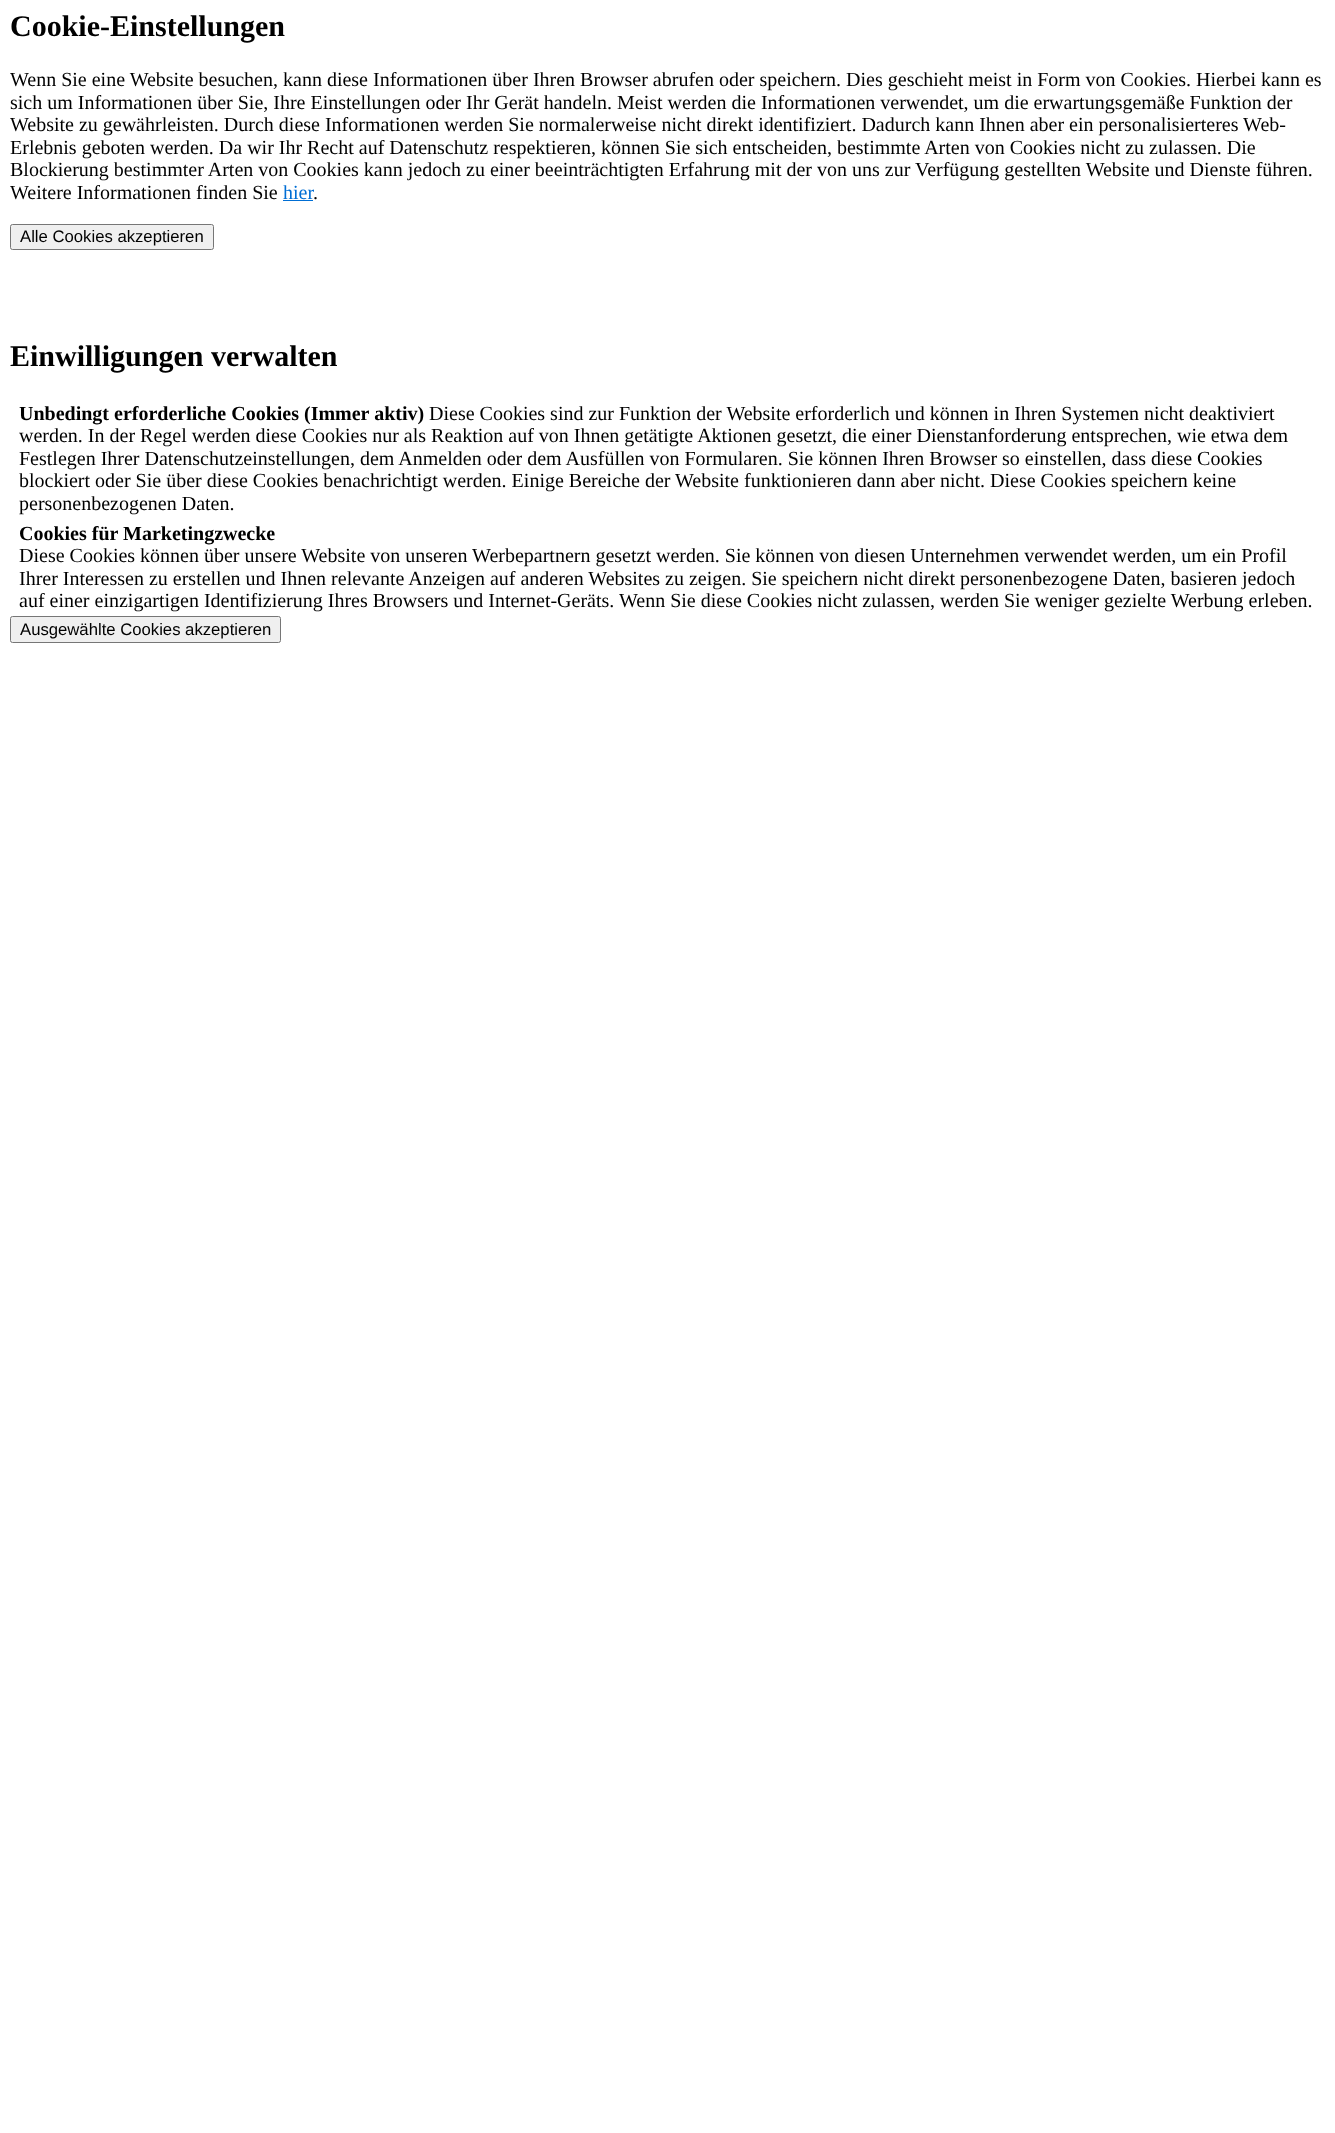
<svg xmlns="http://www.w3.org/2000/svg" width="1335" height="2133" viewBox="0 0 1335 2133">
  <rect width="100%" height="100%" fill="rgb(255,255,255)"/>
  <text x="10" y="36" font-family="Liberation Serif" font-size="30" font-weight="bold" fill="rgb(0,0,0)">Cookie-Einstellungen</text>
  <g font-family="Liberation Serif" font-size="20" fill="rgb(0,0,0)">
    <text>
      <tspan x="10" y="86">Wenn Sie eine Website besuchen, kann diese Informationen über Ihren Browser abrufen oder speichern. Dies geschieht meist in Form von Cookies. Hierbei kann es</tspan>
      <tspan x="10" y="109">sich um Informationen über Sie, Ihre Einstellungen oder Ihr Gerät handeln. Meist werden die Informationen verwendet, um die erwartungsgemäße Funktion der</tspan>
      <tspan x="10" y="131">Website zu gewährleisten. Durch diese Informationen werden Sie normalerweise nicht direkt identifiziert. Dadurch kann Ihnen aber ein personalisierteres Web-</tspan>
      <tspan x="10" y="154">Erlebnis geboten werden. Da wir Ihr Recht auf Datenschutz respektieren, können Sie sich entscheiden, bestimmte Arten von Cookies nicht zu zulassen. Die</tspan>
      <tspan x="10" y="176">Blockierung bestimmter Arten von Cookies kann jedoch zu einer beeinträchtigten Erfahrung mit der von uns zur Verfügung gestellten Website und Dienste führen.</tspan>
      <tspan x="10" y="199">Weitere Informationen finden Sie</tspan>
    </text>
  </g>
  <text x="283" y="199" font-family="Liberation Serif" font-size="20" fill="rgb(0,110,212)">hier</text>
  <rect x="283" y="200" width="30" height="1" fill="rgb(0,110,212)"/>
  <text x="313" y="199" font-family="Liberation Serif" font-size="20" fill="rgb(0,0,0)">.</text>
  <rect x="10.5" y="224.5" width="203" height="25" rx="2" fill="rgb(239,239,239)" stroke="rgb(118,118,118)"/>
  <text x="20" y="242" font-family="Liberation Sans" font-size="16.7" fill="rgb(0,0,0)">Alle Cookies akzeptieren</text>
  <text x="10" y="366" font-family="Liberation Serif" font-size="30" font-weight="bold" fill="rgb(0,0,0)">Einwilligungen verwalten</text>
  <text x="19" y="420" font-family="Liberation Serif" font-size="20" font-weight="bold" fill="rgb(0,0,0)">Unbedingt erforderliche Cookies (Immer aktiv)</text>
  <g font-family="Liberation Serif" font-size="20" fill="rgb(0,0,0)">
    <text x="429" y="420">Diese Cookies sind zur Funktion der Website erforderlich und können in Ihren Systemen nicht deaktiviert</text>
    <text>
      <tspan x="19" y="442">werden. In der Regel werden diese Cookies nur als Reaktion auf von Ihnen getätigte Aktionen gesetzt, die einer Dienstanforderung entsprechen, wie etwa dem</tspan>
      <tspan x="19" y="465">Festlegen Ihrer Datenschutzeinstellungen, dem Anmelden oder dem Ausfüllen von Formularen. Sie können Ihren Browser so einstellen, dass diese Cookies</tspan>
      <tspan x="19" y="487">blockiert oder Sie über diese Cookies benachrichtigt werden. Einige Bereiche der Website funktionieren dann aber nicht. Diese Cookies speichern keine</tspan>
      <tspan x="19" y="510">personenbezogenen Daten.</tspan>
    </text>
  </g>
  <text x="19" y="540" font-family="Liberation Serif" font-size="20" font-weight="bold" fill="rgb(0,0,0)">Cookies für Marketingzwecke</text>
  <g font-family="Liberation Serif" font-size="20" fill="rgb(0,0,0)">
    <text>
      <tspan x="19" y="562">Diese Cookies können über unsere Website von unseren Werbepartnern gesetzt werden. Sie können von diesen Unternehmen verwendet werden, um ein Profil</tspan>
      <tspan x="19" y="585">Ihrer Interessen zu erstellen und Ihnen relevante Anzeigen auf anderen Websites zu zeigen. Sie speichern nicht direkt personenbezogene Daten, basieren jedoch</tspan>
      <tspan x="19" y="607">auf einer einzigartigen Identifizierung Ihres Browsers und Internet-Geräts.</tspan>
    </text>
    <text x="619" y="607">Wenn Sie diese Cookies nicht zulassen, werden Sie weniger gezielte Werbung erleben.</text>
  </g>
  <rect x="10.5" y="616.5" width="270" height="26" rx="2" fill="rgb(239,239,239)" stroke="rgb(118,118,118)"/>
  <text x="20" y="635" font-family="Liberation Sans" font-size="16.7" fill="rgb(0,0,0)">Ausgewählte Cookies akzeptieren</text>
</svg>
